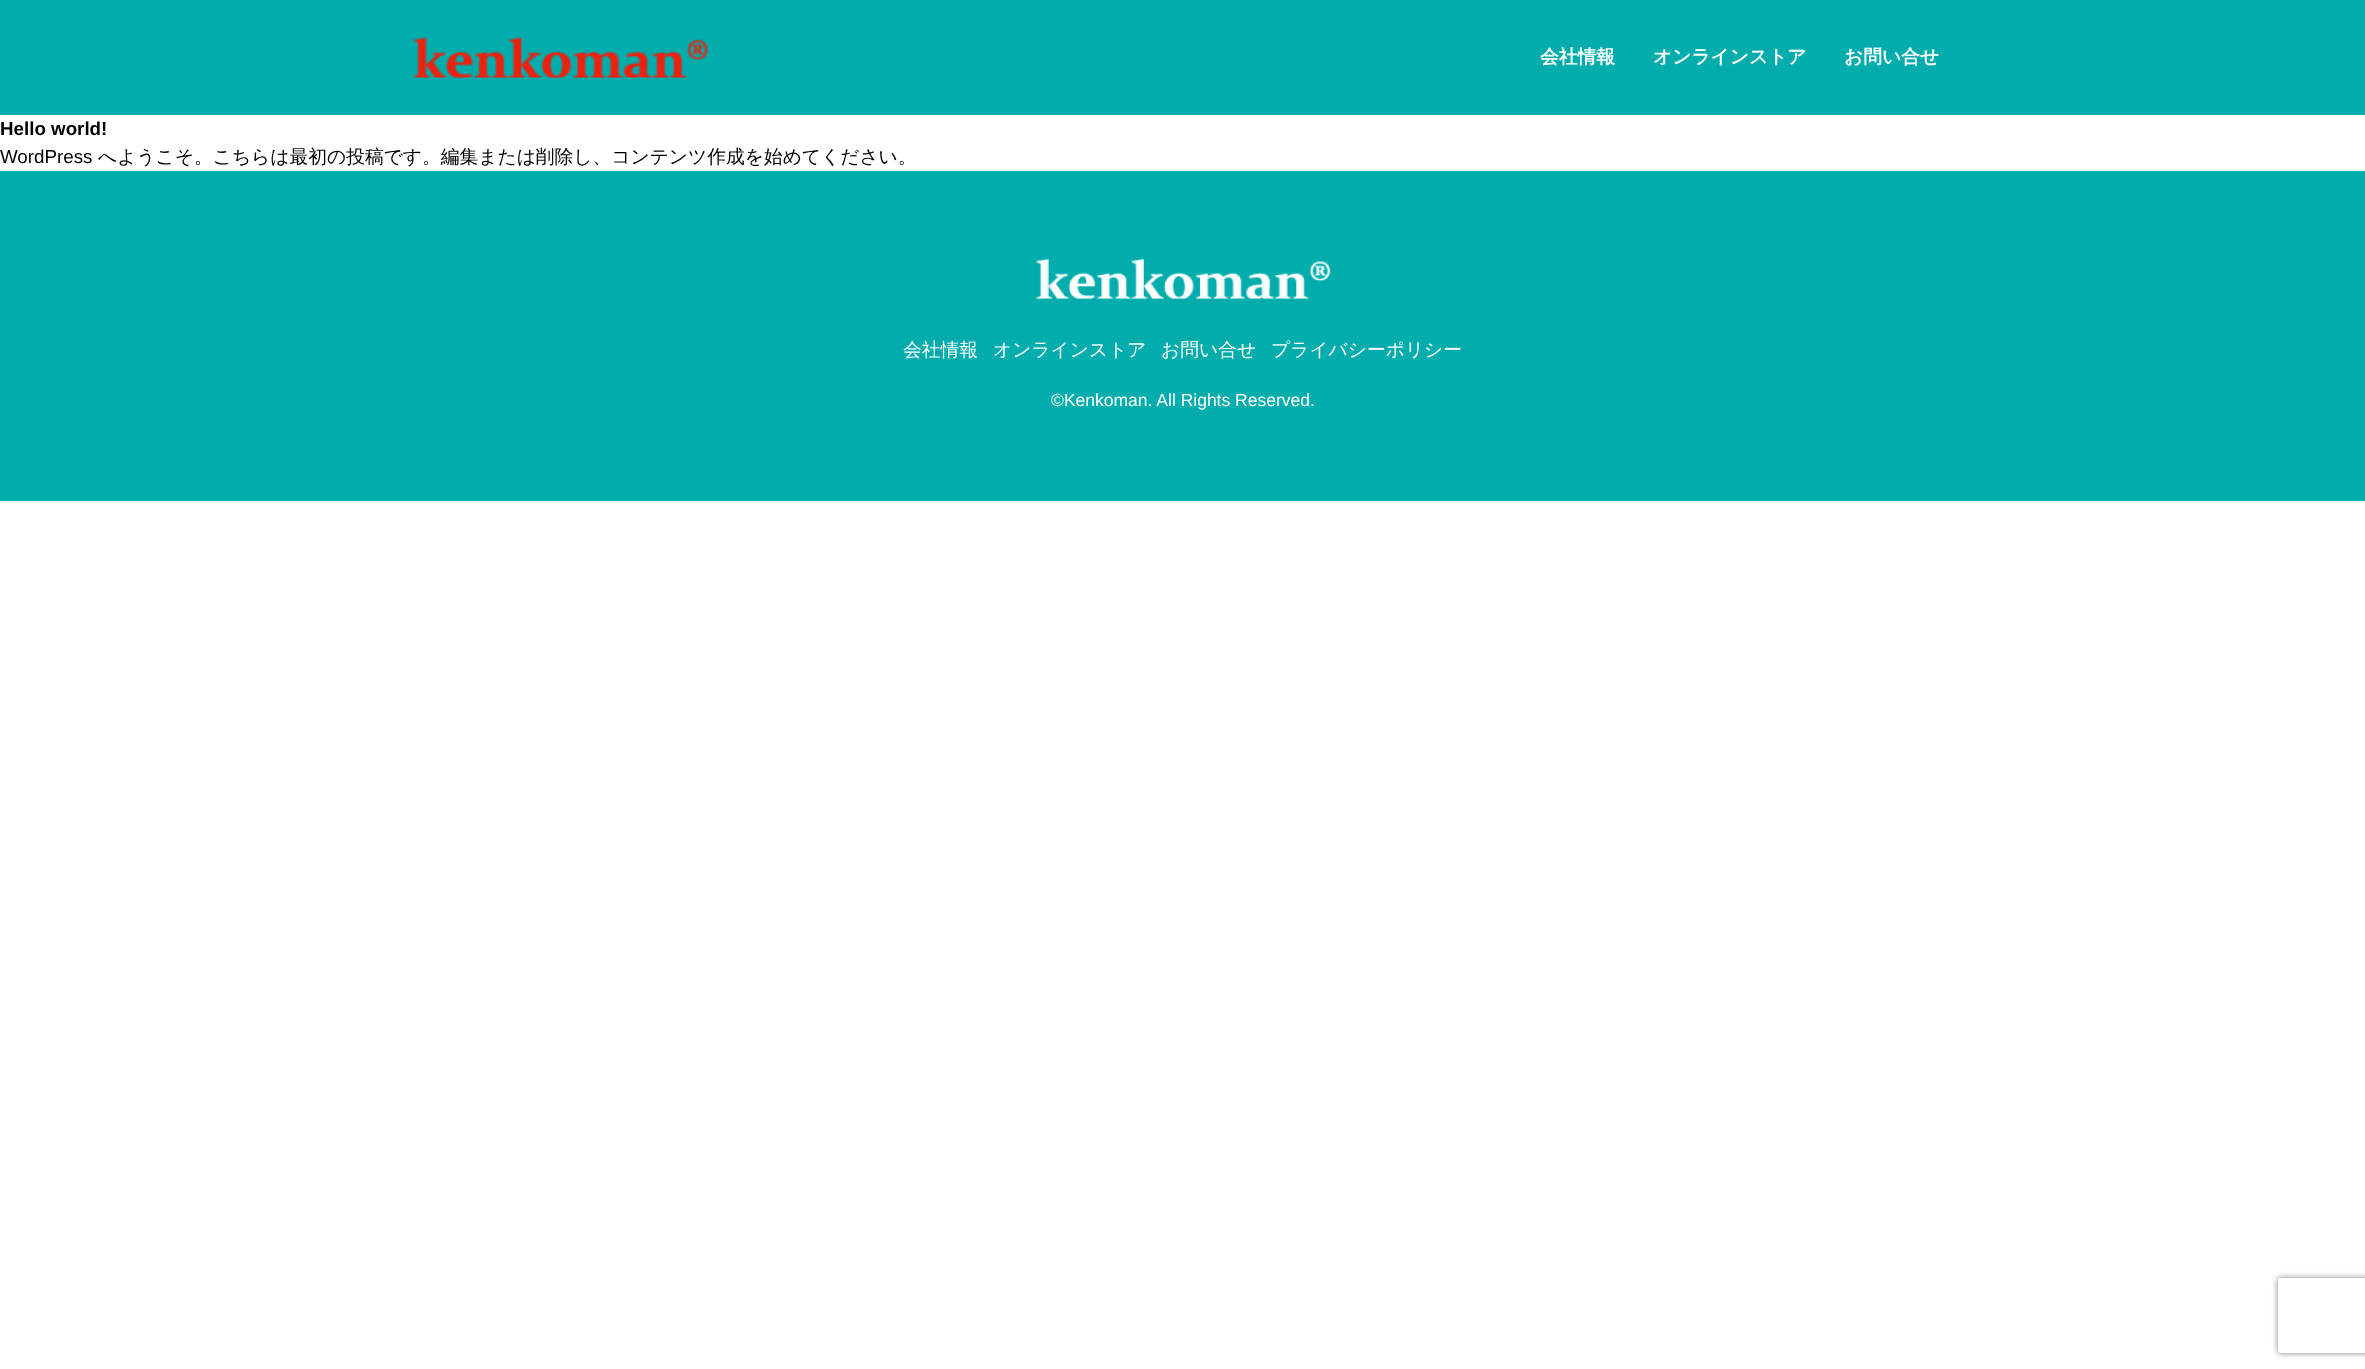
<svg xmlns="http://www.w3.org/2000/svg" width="2365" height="1369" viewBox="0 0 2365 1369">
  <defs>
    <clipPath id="clip1"><path d="M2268 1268H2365V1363H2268ZM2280.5 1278H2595.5C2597 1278 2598 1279 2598 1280.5V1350.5C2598 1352 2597 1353 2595.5 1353H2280.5C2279 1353 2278 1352 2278 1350.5V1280.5C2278 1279 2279 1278 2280.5 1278Z" clip-rule="evenodd"/></clipPath>
  </defs>
  <rect width="100%" height="100%" fill="rgb(255,255,255)"/>
  <rect x="0" y="0" width="2365" height="115" fill="rgb(1,172,172)"/>
  <image x="413" y="37" width="296" height="41" href="pic1.png"/>
  <g font-family="WenQuanYi Zen Hei" font-size="18.75" font-weight="bold" fill="rgb(255,255,255)">
    <text x="1540" y="63">会社情報</text>
    <text x="1653" y="63">オンラインストア</text>
    <text x="1844" y="63">お問い合せ</text>
  </g>
  <text x="0" y="135" font-family="Liberation Sans" font-size="18.75" font-weight="bold" fill="rgb(0,0,0)">Hello world!</text>
  <text x="0" y="163" font-family="Liberation Sans" font-size="18.75" fill="rgb(0,0,0)">WordPress</text>
  <text x="98" y="163" font-family="WenQuanYi Zen Hei" font-size="18.75" font-weight="500" fill="rgb(0,0,0)">へようこそ。こちらは最初の投稿です。編集または削除し、コンテンツ作成を始めてください。</text>
  <rect x="0" y="171" width="2365" height="330" fill="rgb(1,172,172)"/>
  <image x="1036" y="259" width="295" height="40" href="pic2.png"/>
  <g font-family="WenQuanYi Zen Hei" font-size="18.75" font-weight="500" fill="rgb(255,255,255)">
    <text x="903" y="356">会社情報</text>
    <text x="993" y="356">オンラインストア</text>
    <text x="1161" y="356">お問い合せ</text>
    <text x="1271" y="356">プライバシーポリシー</text>
  </g>
  <text x="1051" y="406" font-family="Liberation Sans" font-size="17.5" fill="rgb(255,255,255)">©Kenkoman. All Rights Reserved.</text>
  <g clip-path="url(#clip1)">
    <rect x="2278" y="1278" width="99" height="75" rx="2.5" fill="rgb(128,128,128)" filter="blur(3px)"/>
  </g>
</svg>
